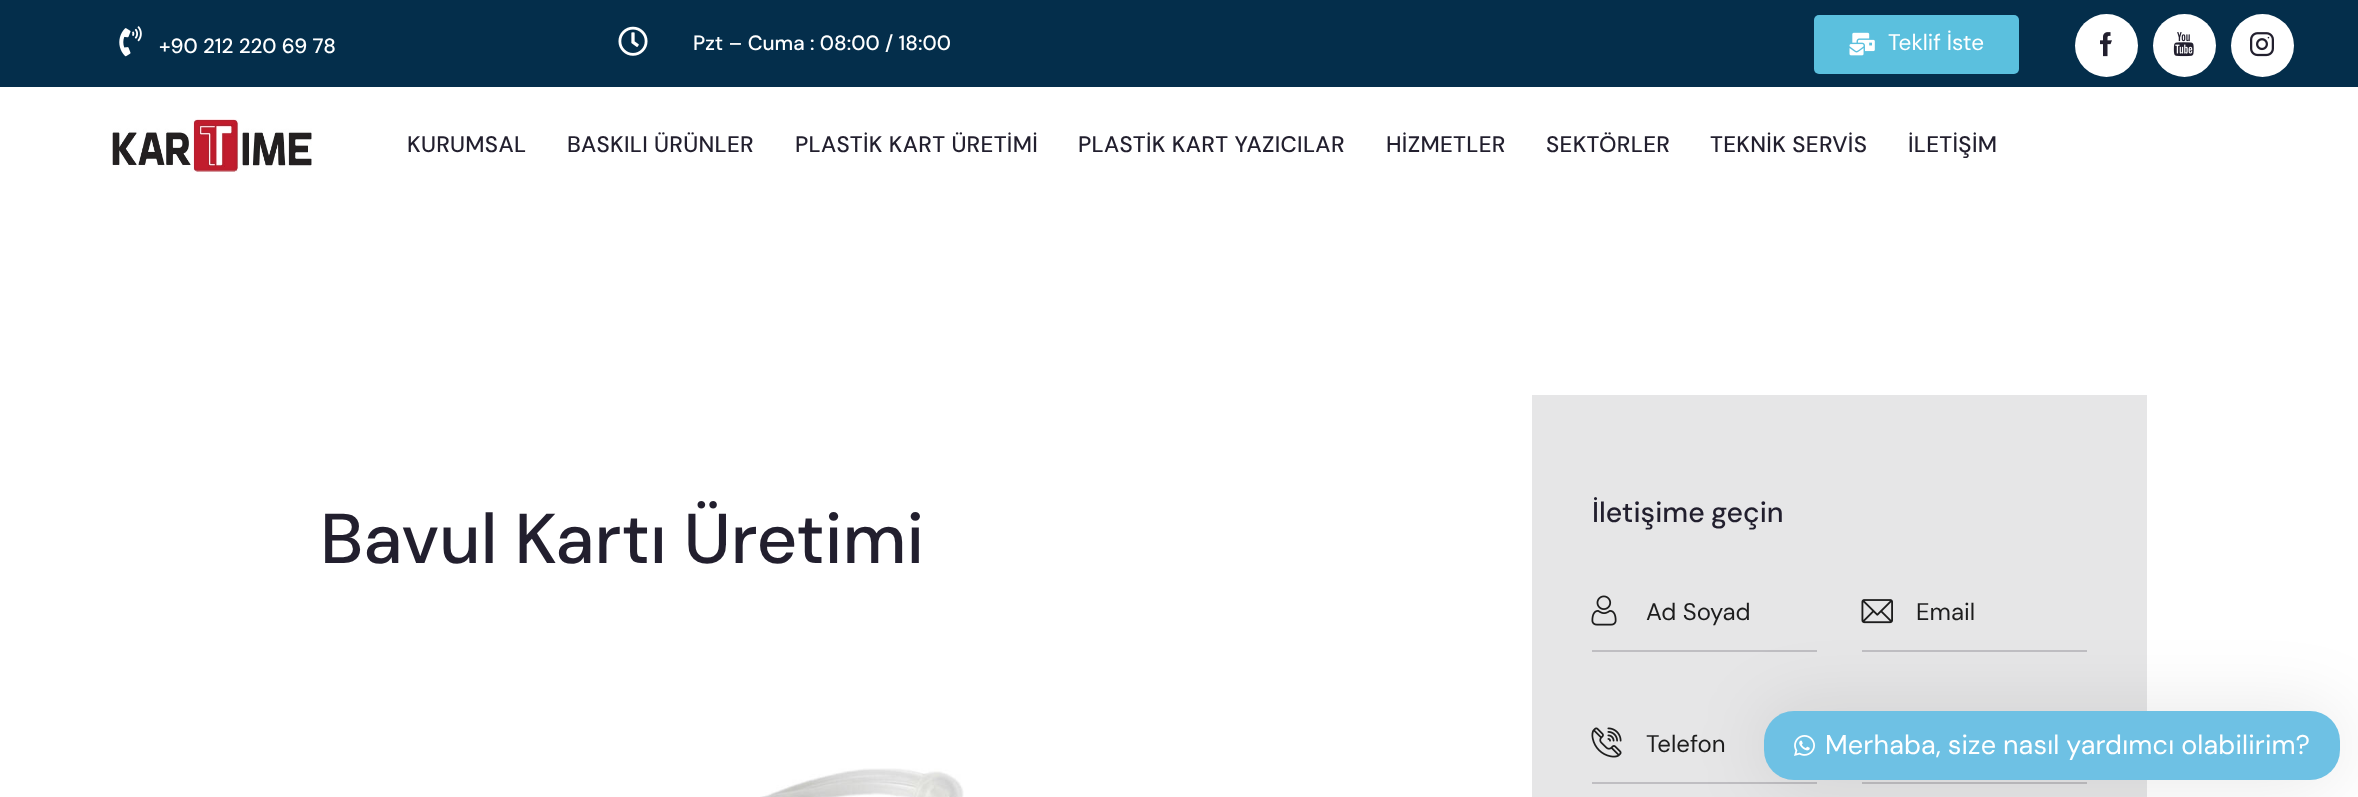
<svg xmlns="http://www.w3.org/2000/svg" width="2358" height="797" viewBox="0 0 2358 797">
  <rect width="100%" height="100%" fill="rgb(255,255,255)"/>
  <rect x="0" y="0" width="2358" height="87" fill="rgb(4,46,75)"/>
  <image x="119" y="26" width="23" height="31" href="pic1.png"/>
  <text x="159" y="53" font-family="DM Sans" font-size="20.6" font-weight="500" fill="rgb(255,255,255)">+90 212 220 69 78</text>
  <image x="618" y="26" width="30" height="30" href="pic2.png"/>
  <text x="693" y="50" font-family="DM Sans" font-size="20.6" font-weight="500" fill="rgb(255,255,255)">Pzt – Cuma : 08:00 / 18:00</text>
  <rect x="1814" y="15" width="205" height="59" rx="5" fill="rgb(91,192,222)"/>
  <image x="1849" y="32" width="26" height="24" href="pic3.png"/>
  <text x="1888" y="50" font-family="DM Sans" font-size="22.5" fill="rgb(255,255,255)">Teklif İste</text>
  <circle cx="2106.5" cy="45.5" r="31.5" fill="rgb(255,255,255)"/>
  <image x="2100" y="32" width="12" height="25" href="pic4.png"/>
  <circle cx="2184.5" cy="45.5" r="31.5" fill="rgb(255,255,255)"/>
  <image x="2173" y="32" width="21" height="25" href="pic5.png"/>
  <circle cx="2262.5" cy="45.5" r="31.5" fill="rgb(255,255,255)"/>
  <image x="2250" y="32" width="24" height="25" href="pic6.png"/>
  <image x="112" y="119" width="200" height="53" href="pic7.png"/>
  <g font-family="DM Sans" font-size="22.5" font-weight="500" letter-spacing="0.3" fill="rgb(34,31,46)">
    <text x="407" y="152">KURUMSAL</text>
    <text x="567" y="152">BASKILI ÜRÜNLER</text>
    <text x="795" y="152">PLASTİK KART ÜRETİMİ</text>
    <text x="1078" y="152">PLASTİK KART YAZICILAR</text>
    <text x="1386" y="152">HİZMETLER</text>
    <text x="1546" y="152">SEKTÖRLER</text>
    <text x="1710" y="152">TEKNİK SERVİS</text>
    <text x="1908" y="152">İLETİŞİM</text>
  </g>
  <text x="320" y="563" word-spacing="-1" font-family="DM Sans" font-size="70.5" font-weight="500" fill="rgb(34,31,46)">Bavul Kartı Üretimi</text>
  <image x="760" y="768" width="204" height="29" href="pic8.png"/>
  <rect x="1532" y="395" width="615" height="402" fill="rgb(230,230,231)"/>
  <text x="1592" y="522" word-spacing="-1" font-family="DM Sans" font-size="28.5" font-weight="500" fill="rgb(34,31,46)">İletişime geçin</text>
  <image x="1591" y="595" width="26" height="31" href="pic9.png"/>
  <text x="1646" y="620" font-family="DM Sans" font-size="24" fill="rgb(29,29,29)">Ad Soyad</text>
  <rect x="1592" y="650" width="225" height="2" fill="rgb(191,190,194)"/>
  <image x="1861" y="599" width="32" height="25" href="pic10.png"/>
  <text x="1916" y="620" font-family="DM Sans" font-size="24" fill="rgb(29,29,29)">Email</text>
  <rect x="1862" y="650" width="225" height="2" fill="rgb(191,190,194)"/>
  <image x="1591" y="727" width="31" height="31" href="pic11.png"/>
  <text x="1646" y="752" font-family="DM Sans" font-size="24" fill="rgb(29,29,29)">Telefon</text>
  <rect x="1592" y="782" width="225" height="2" fill="rgb(191,190,194)"/>
  <rect x="1862" y="782" width="225" height="2" fill="rgb(191,190,194)"/>
  <rect x="1764" y="711" width="576" height="69" rx="30" fill="rgba(0,0,0,0.1)" filter="blur(37.5px)"/>
  <rect x="1764" y="711" width="576" height="69" rx="30" fill="rgb(110,193,228)"/>
  <image x="1794" y="735" width="21" height="21" href="pic12.png"/>
  <text x="1825" y="754" word-spacing="-0.5" font-family="DM Sans" font-size="27" letter-spacing="0.15" fill="rgb(255,255,255)">Merhaba, size nasıl yardımcı olabilirim?</text>
</svg>
